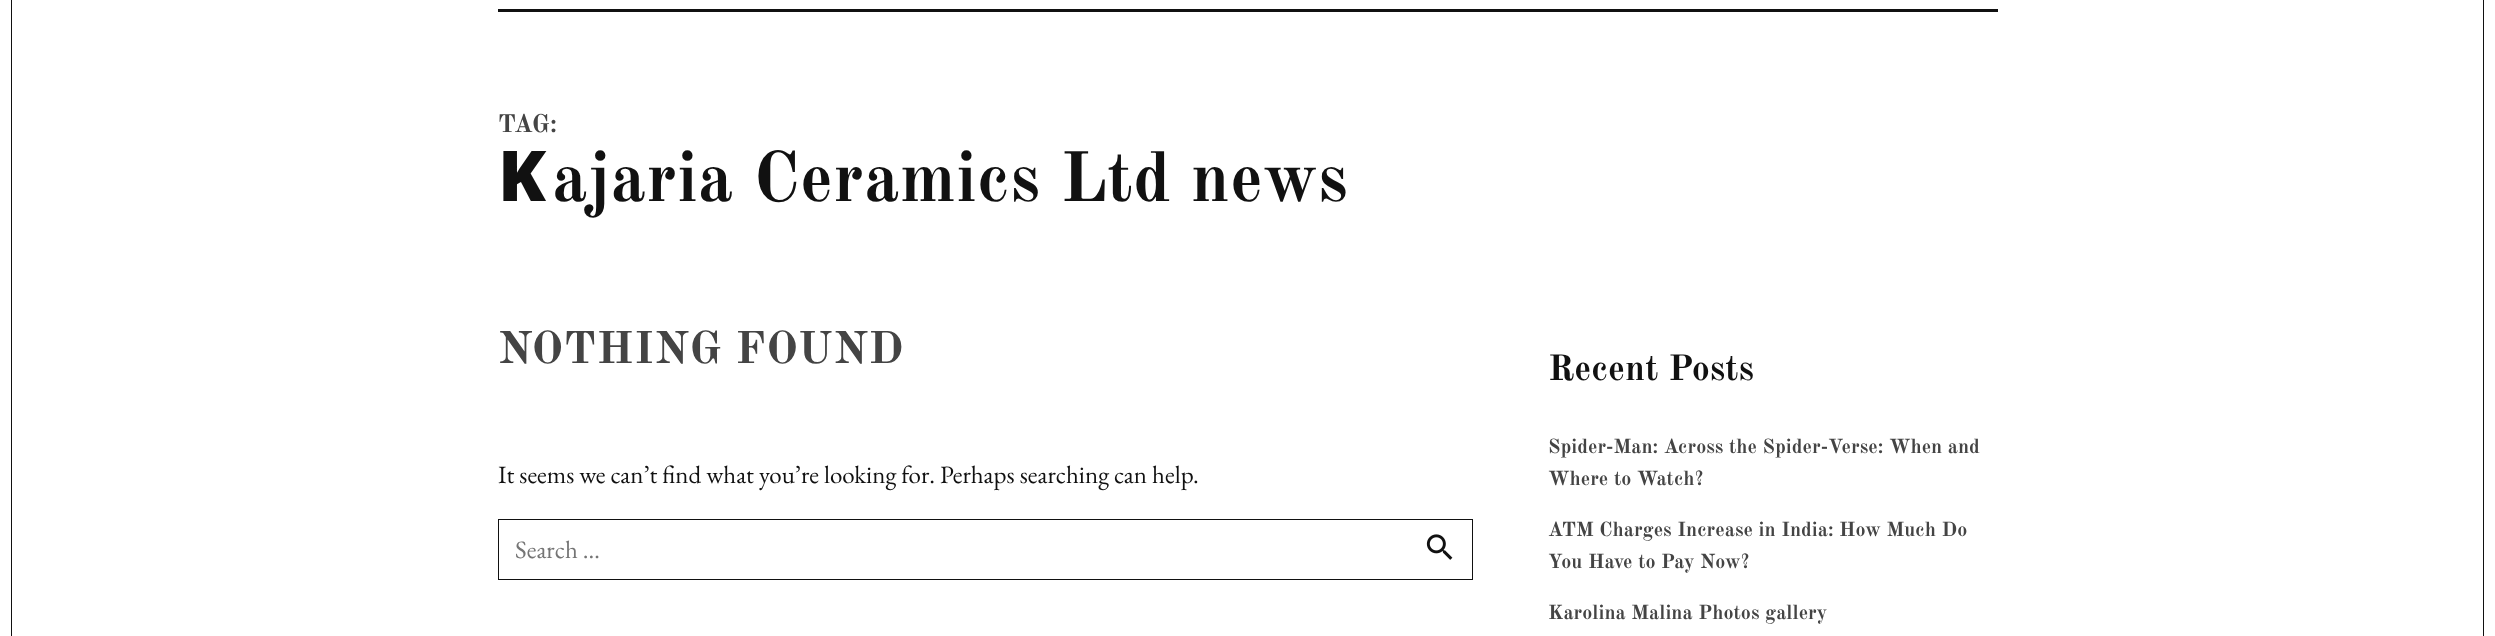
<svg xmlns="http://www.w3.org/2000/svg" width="2495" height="636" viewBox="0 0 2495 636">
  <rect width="100%" height="100%" fill="rgb(255,255,255)"/>
  <rect x="498" y="9" width="1500" height="3" fill="rgb(17,17,17)"/>
  <rect x="11.5" y="-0.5" width="2472" height="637" fill="none" stroke="rgb(17,17,17)"/>
  <text x="498" y="132" font-family="Old Standard TT" font-size="25" font-weight="bold" letter-spacing="0.25" fill="rgb(68,68,68)">TAG:</text>
  <text x="498" y="201" font-family="Noto Sans" font-size="70" font-weight="900" letter-spacing="0.25" fill="rgb(17,17,17)">K</text>
  <text x="552" y="201" font-family="Old Standard TT" font-size="70" font-weight="bold" letter-spacing="0.25" fill="rgb(17,17,17)">ajaria Ceramics Ltd news</text>
  <text x="498" y="363" font-family="Old Standard TT" font-size="45" font-weight="bold" letter-spacing="0.5" fill="rgb(68,68,68)">NOTHING FOUND</text>
  <text x="498" y="483" font-family="EB Garamond" font-size="25" fill="rgb(17,17,17)">It seems we can’t find what you’re looking for. Perhaps searching can help.</text>
  <rect x="498.5" y="519.5" width="974" height="60" fill="none" stroke="rgb(17,17,17)"/>
  <text x="515" y="558" font-family="EB Garamond" font-size="25" fill="rgb(117,117,117)">Search …</text>
  <image x="1426" y="534" width="27" height="26" href="pic1.png"/>
  <text x="1548" y="380" font-family="Old Standard TT" font-size="36" font-weight="bold" fill="rgb(17,17,17)">Recent Posts</text>
  <g font-family="Old Standard TT" font-size="20" font-weight="bold" fill="rgb(68,68,68)">
    <text>
      <tspan x="1548" y="453">Spider-Man: Across the Spider-Verse: When and</tspan>
      <tspan x="1548" y="485">Where to Watch?</tspan>
    </text>
    <text>
      <tspan x="1548" y="536">ATM Charges Increase in India: How Much Do</tspan>
      <tspan x="1548" y="568">You Have to Pay Now?</tspan>
    </text>
    <text x="1548" y="619">Karolina Malina Photos gallery</text>
  </g>
</svg>
